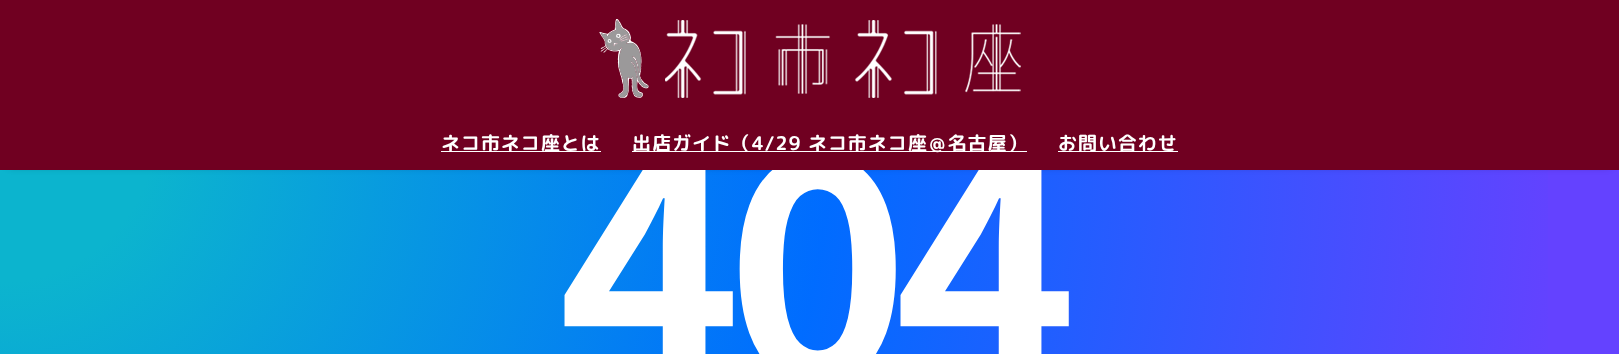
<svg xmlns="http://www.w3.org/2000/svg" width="1619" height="354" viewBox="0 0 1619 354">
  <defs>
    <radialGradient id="g1" gradientUnits="userSpaceOnUse" cx="0" cy="169" r="1693"><stop offset="0.09" stop-color="rgb(12,180,206)"/><stop offset="0.48" stop-color="rgb(0,108,255)"/><stop offset="0.91" stop-color="rgb(100,66,255)"/></radialGradient>
    <radialGradient id="g2" gradientUnits="userSpaceOnUse" cx="0" cy="126" r="1727"><stop offset="0.09" stop-color="rgb(12,180,206)" stop-opacity="0.85"/><stop offset="0.48" stop-color="rgb(0,108,255)" stop-opacity="0.85"/><stop offset="0.91" stop-color="rgb(100,66,255)" stop-opacity="0.85"/></radialGradient>
  </defs>
  <rect width="100%" height="100%" fill="rgb(255,255,255)"/>
  <rect x="0" y="170" width="1619" height="184" fill="url(#g1)"/>
  <rect x="0" y="170" width="1548" height="184" fill="url(#g2)"/>
  <rect x="10" y="130" width="1600" height="34" fill="rgba(0,0,0,0.6)" filter="blur(5px)"/>
  <text x="558" y="382" font-family="Noto Sans JP" font-size="311" font-weight="bold" letter-spacing="-15.5" fill="rgb(255,255,255)">404</text>
  <rect x="0" y="0" width="1619" height="170" fill="rgb(112,0,33)"/>
  <image x="599" y="19" width="422" height="79" href="pic1.png"/>
  <rect x="441" y="151" width="160" height="1" fill="rgb(255,255,255)"/>
  <text x="441" y="150" font-family="'Rounded Mplus 1c Bold'" font-size="19" font-weight="bold" letter-spacing="0.95" fill="rgb(255,255,255)">ネコ市ネコ座とは</text>
  <rect x="632" y="151" width="395" height="1" fill="rgb(255,255,255)"/>
  <text x="632" y="150" font-family="'Rounded Mplus 1c Bold'" font-size="19" font-weight="bold" letter-spacing="0.95" fill="rgb(255,255,255)">出店ガイド（4/29 ネコ市ネコ座＠名古屋）</text>
  <rect x="1058" y="151" width="120" height="1" fill="rgb(255,255,255)"/>
  <text x="1058" y="150" font-family="'Rounded Mplus 1c Bold'" font-size="19" font-weight="bold" letter-spacing="0.95" fill="rgb(255,255,255)">お問い合わせ</text>
</svg>
